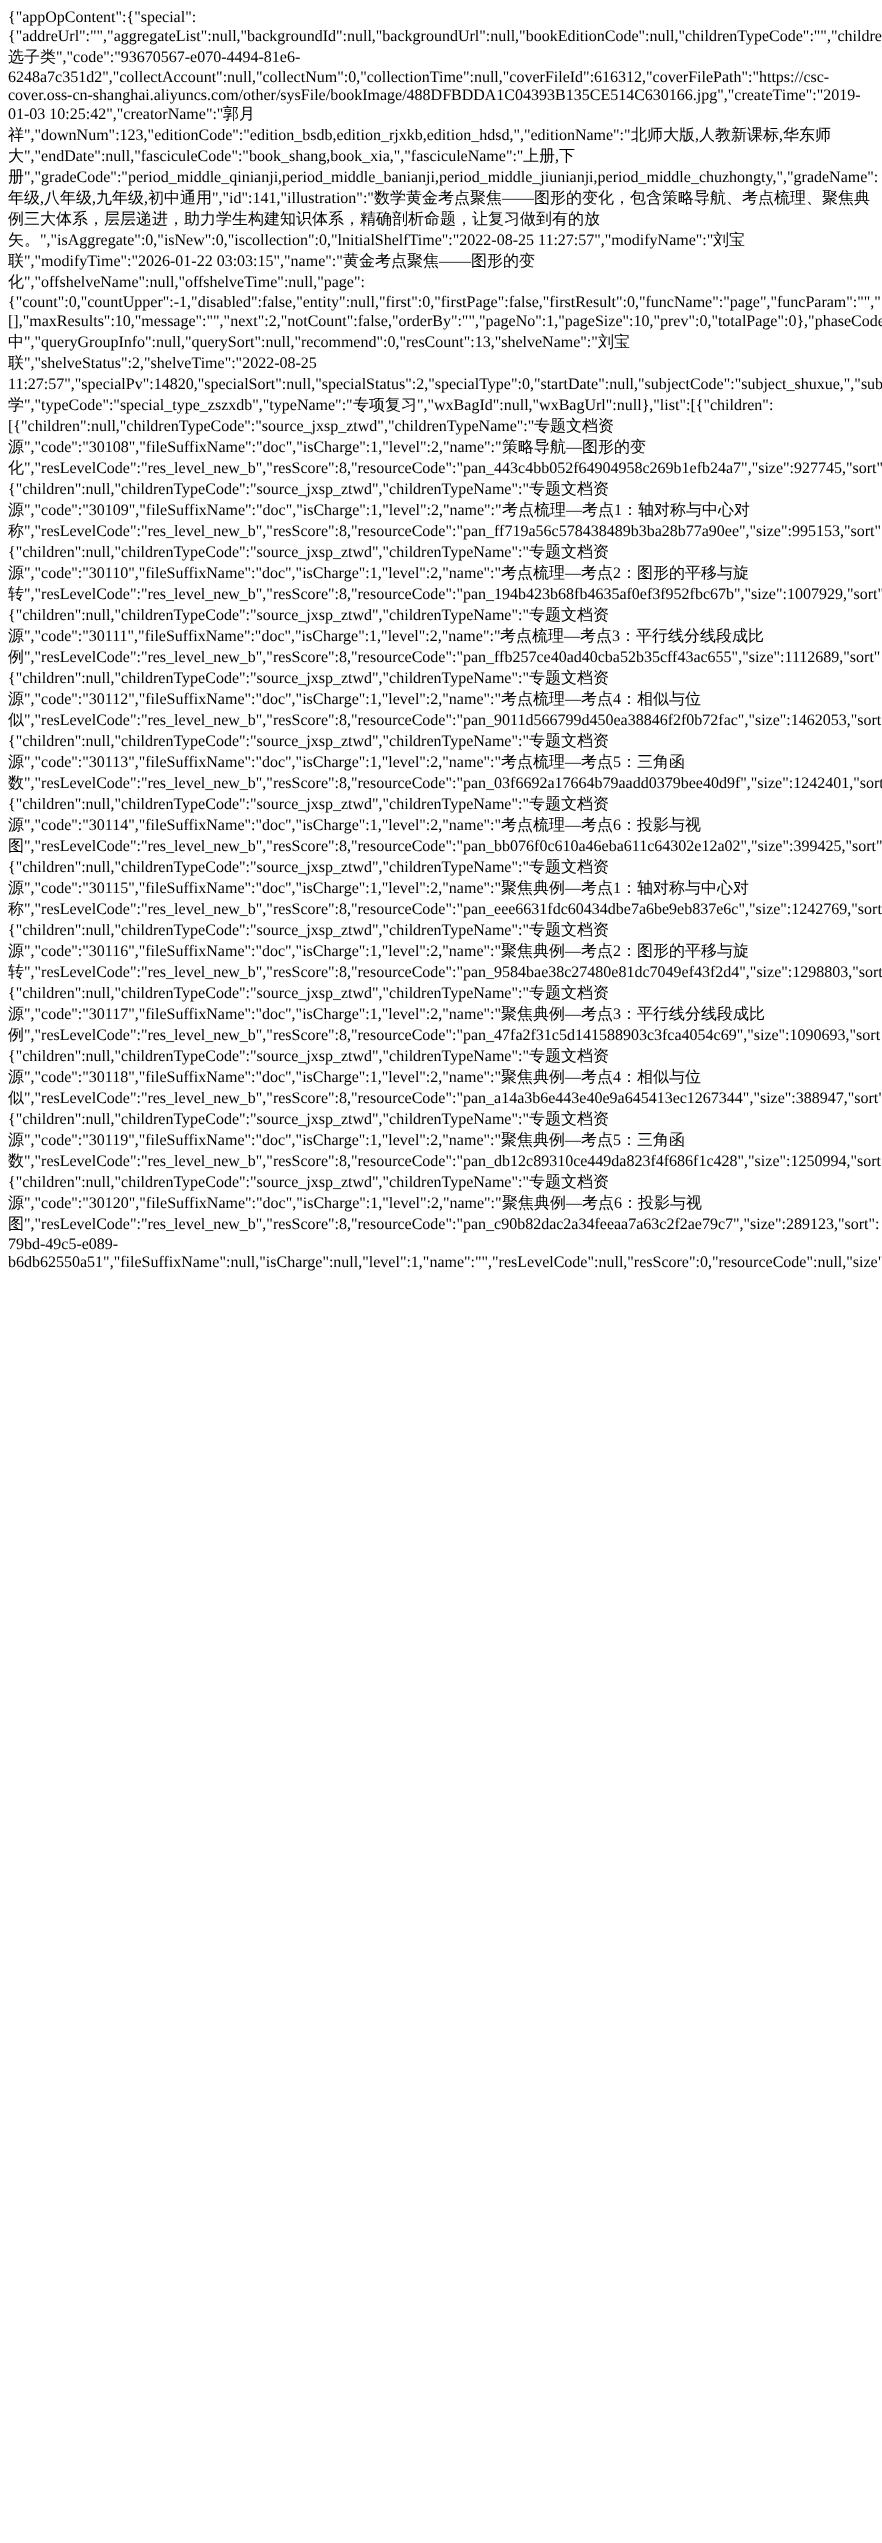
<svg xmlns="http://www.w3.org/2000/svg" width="882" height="2543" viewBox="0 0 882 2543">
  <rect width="100%" height="100%" fill="rgb(255,255,255)"/>
  <g font-family="Liberation Serif" font-size="16" fill="rgb(0,0,0)">
    <text>
      <tspan x="8" y="22">{"appOpContent":{"special":</tspan>
      <tspan x="8" y="41">{"addreUrl":"","aggregateList":null,"backgroundId":null,"backgroundUrl":null,"bookEditionCode":null,"childrenTypeCode":"","childre</tspan>
    </text>
  </g>
  <text x="8" y="62" font-family="WenQuanYi Zen Hei" font-size="16" font-weight="500" fill="rgb(0,0,0)">选子类</text>
  <g font-family="Liberation Serif" font-size="16" fill="rgb(0,0,0)">
    <text x="56" y="62">","code":"93670567-e070-4494-81e6-</text>
    <text>
      <tspan x="8" y="82">6248a7c351d2","collectAccount":null,"collectNum":0,"collectionTime":null,"coverFileId":616312,"coverFilePath":"https://csc-</tspan>
      <tspan x="8" y="100">cover.oss-cn-shanghai.aliyuncs.com/other/sysFile/bookImage/488DFBDDA1C04393B135CE514C630166.jpg","createTime":"2019-</tspan>
      <tspan x="8" y="119">01-03 10:25:42","creatorName":"</tspan>
    </text>
  </g>
  <g font-family="WenQuanYi Zen Hei" font-size="16" font-weight="500" fill="rgb(0,0,0)">
    <text x="223" y="119">郭月</text>
    <text x="8" y="140">祥</text>
  </g>
  <text x="24" y="140" font-family="Liberation Serif" font-size="16" fill="rgb(0,0,0)">","downNum":123,"editionCode":"edition_bsdb,edition_rjxkb,edition_hdsd,","editionName":"</text>
  <text x="631" y="140" font-family="WenQuanYi Zen Hei" font-size="16" font-weight="500" fill="rgb(0,0,0)">北师大版</text>
  <text x="695" y="140" font-family="Liberation Serif" font-size="16" fill="rgb(0,0,0)">,</text>
  <text x="699" y="140" font-family="WenQuanYi Zen Hei" font-size="16" font-weight="500" fill="rgb(0,0,0)">人教新课标</text>
  <text x="779" y="140" font-family="Liberation Serif" font-size="16" fill="rgb(0,0,0)">,</text>
  <g font-family="WenQuanYi Zen Hei" font-size="16" font-weight="500" fill="rgb(0,0,0)">
    <text x="783" y="140">华东师</text>
    <text x="8" y="161">大</text>
  </g>
  <text x="24" y="161" font-family="Liberation Serif" font-size="16" fill="rgb(0,0,0)">","endDate":null,"fasciculeCode":"book_shang,book_xia,","fasciculeName":"</text>
  <text x="523" y="161" font-family="WenQuanYi Zen Hei" font-size="16" font-weight="500" fill="rgb(0,0,0)">上册</text>
  <text x="555" y="161" font-family="Liberation Serif" font-size="16" fill="rgb(0,0,0)">,</text>
  <g font-family="WenQuanYi Zen Hei" font-size="16" font-weight="500" fill="rgb(0,0,0)">
    <text x="559" y="161">下</text>
    <text x="8" y="182">册</text>
  </g>
  <text x="24" y="182" font-family="Liberation Serif" font-size="16" fill="rgb(0,0,0)">","gradeCode":"period_middle_qinianji,period_middle_banianji,period_middle_jiunianji,period_middle_chuzhongty,","gradeName":</text>
  <g font-family="WenQuanYi Zen Hei" font-size="16" font-weight="500" fill="rgb(0,0,0)">
    <text x="8" y="203">年级</text>
    <text x="44" y="203">八年级</text>
    <text x="96" y="203">九年级</text>
    <text x="148" y="203">初中通用</text>
  </g>
  <text x="212" y="203" font-family="Liberation Serif" font-size="16" fill="rgb(0,0,0)">","id":141,"illustration":"</text>
  <text x="374" y="203" font-family="WenQuanYi Zen Hei" font-size="16" font-weight="500" fill="rgb(0,0,0)">数学黄金考点聚焦</text>
  <text x="502" y="203" font-family="Liberation Serif" font-size="16" fill="rgb(0,0,0)">——</text>
  <text x="534" y="203" font-family="WenQuanYi Zen Hei" font-size="16" font-weight="500" fill="rgb(0,0,0)">图形的变化，包含策略导航、考点梳理、聚焦典</text>
  <g font-family="Liberation Serif" font-size="16" fill="rgb(0,0,0)">
    <text x="40" y="203">,</text>
    <text x="92" y="203">,</text>
    <text x="144" y="203">,</text>
  </g>
  <g font-family="WenQuanYi Zen Hei" font-size="16" font-weight="500" fill="rgb(0,0,0)">
    <text>
      <tspan x="8" y="224">例三大体系，层层递进，助力学生构建知识体系，精确剖析命题，让复习做到有的放</tspan>
      <tspan x="8" y="245">矢。</tspan>
    </text>
  </g>
  <text x="40" y="245" font-family="Liberation Serif" font-size="16" fill="rgb(0,0,0)">","isAggregate":0,"isNew":0,"iscollection":0,"lnitialShelfTime":"2022-08-25 11:27:57","modifyName":"</text>
  <g font-family="WenQuanYi Zen Hei" font-size="16" font-weight="500" fill="rgb(0,0,0)">
    <text x="713" y="245">刘宝</text>
    <text x="8" y="266">联</text>
  </g>
  <text x="24" y="266" font-family="Liberation Serif" font-size="16" fill="rgb(0,0,0)">","modifyTime":"2026-01-22 03:03:15","name":"</text>
  <text x="343" y="266" font-family="WenQuanYi Zen Hei" font-size="16" font-weight="500" fill="rgb(0,0,0)">黄金考点聚焦</text>
  <text x="439" y="266" font-family="Liberation Serif" font-size="16" fill="rgb(0,0,0)">——</text>
  <g font-family="WenQuanYi Zen Hei" font-size="16" font-weight="500" fill="rgb(0,0,0)">
    <text x="471" y="266">图形的变</text>
    <text x="8" y="287">化</text>
  </g>
  <g font-family="Liberation Serif" font-size="16" fill="rgb(0,0,0)">
    <text x="24" y="287">","offshelveName":null,"offshelveTime":null,"page":</text>
    <text>
      <tspan x="8" y="307">{"count":0,"countUpper":-1,"disabled":false,"entity":null,"first":0,"firstPage":false,"firstResult":0,"funcName":"page","funcParam":"","</tspan>
      <tspan x="8" y="326">[],"maxResults":10,"message":"","next":2,"notCount":false,"orderBy":"","pageNo":1,"pageSize":10,"prev":0,"totalPage":0},"phaseCode</tspan>
    </text>
  </g>
  <text x="8" y="347" font-family="WenQuanYi Zen Hei" font-size="16" font-weight="500" fill="rgb(0,0,0)">中</text>
  <text x="24" y="347" font-family="Liberation Serif" font-size="16" fill="rgb(0,0,0)">","queryGroupInfo":null,"querySort":null,"recommend":0,"resCount":13,"shelveName":"</text>
  <g font-family="WenQuanYi Zen Hei" font-size="16" font-weight="500" fill="rgb(0,0,0)">
    <text x="598" y="347">刘宝</text>
    <text x="8" y="368">联</text>
  </g>
  <g font-family="Liberation Serif" font-size="16" fill="rgb(0,0,0)">
    <text x="24" y="368">","shelveStatus":2,"shelveTime":"2022-08-25</text>
    <text x="8" y="389">11:27:57","specialPv":14820,"specialSort":null,"specialStatus":2,"specialType":0,"startDate":null,"subjectCode":"subject_shuxue,","sub</text>
  </g>
  <text x="8" y="410" font-family="WenQuanYi Zen Hei" font-size="16" font-weight="500" fill="rgb(0,0,0)">学</text>
  <text x="24" y="410" font-family="Liberation Serif" font-size="16" fill="rgb(0,0,0)">","typeCode":"special_type_zszxdb","typeName":"</text>
  <text x="353" y="410" font-family="WenQuanYi Zen Hei" font-size="16" font-weight="500" fill="rgb(0,0,0)">专项复习</text>
  <g font-family="Liberation Serif" font-size="16" fill="rgb(0,0,0)">
    <text x="417" y="410">","wxBagId":null,"wxBagUrl":null},"list":[{"children":</text>
    <text x="8" y="431">[{"children":null,"childrenTypeCode":"source_jxsp_ztwd","childrenTypeName":"</text>
  </g>
  <g font-family="WenQuanYi Zen Hei" font-size="16" font-weight="500" fill="rgb(0,0,0)">
    <text x="534" y="431">专题文档资</text>
    <text x="8" y="452">源</text>
  </g>
  <text x="24" y="452" font-family="Liberation Serif" font-size="16" fill="rgb(0,0,0)">","code":"30108","fileSuffixName":"doc","isCharge":1,"level":2,"name":"</text>
  <text x="502" y="452" font-family="WenQuanYi Zen Hei" font-size="16" font-weight="500" fill="rgb(0,0,0)">策略导航</text>
  <text x="566" y="452" font-family="Liberation Serif" font-size="16" fill="rgb(0,0,0)">—</text>
  <g font-family="WenQuanYi Zen Hei" font-size="16" font-weight="500" fill="rgb(0,0,0)">
    <text x="582" y="452">图形的变</text>
    <text x="8" y="473">化</text>
  </g>
  <g font-family="Liberation Serif" font-size="16" fill="rgb(0,0,0)">
    <text x="24" y="473">","resLevelCode":"res_level_new_b","resScore":8,"resourceCode":"pan_443c4bb052f64904958c269b1efb24a7","size":927745,"sort"</text>
    <text x="8" y="494">{"children":null,"childrenTypeCode":"source_jxsp_ztwd","childrenTypeName":"</text>
  </g>
  <g font-family="WenQuanYi Zen Hei" font-size="16" font-weight="500" fill="rgb(0,0,0)">
    <text x="529" y="494">专题文档资</text>
    <text x="8" y="515">源</text>
  </g>
  <text x="24" y="515" font-family="Liberation Serif" font-size="16" fill="rgb(0,0,0)">","code":"30109","fileSuffixName":"doc","isCharge":1,"level":2,"name":"</text>
  <text x="502" y="515" font-family="WenQuanYi Zen Hei" font-size="16" font-weight="500" fill="rgb(0,0,0)">考点梳理</text>
  <text x="566" y="515" font-family="Liberation Serif" font-size="16" fill="rgb(0,0,0)">—</text>
  <text x="582" y="515" font-family="WenQuanYi Zen Hei" font-size="16" font-weight="500" fill="rgb(0,0,0)">考点</text>
  <text x="614" y="515" font-family="Liberation Serif" font-size="16" fill="rgb(0,0,0)">1</text>
  <g font-family="WenQuanYi Zen Hei" font-size="16" font-weight="500" fill="rgb(0,0,0)">
    <text x="622" y="515">：轴对称与中心对</text>
    <text x="8" y="536">称</text>
  </g>
  <g font-family="Liberation Serif" font-size="16" fill="rgb(0,0,0)">
    <text x="24" y="536">","resLevelCode":"res_level_new_b","resScore":8,"resourceCode":"pan_ff719a56c578438489b3ba28b77a90ee","size":995153,"sort"</text>
    <text x="8" y="557">{"children":null,"childrenTypeCode":"source_jxsp_ztwd","childrenTypeName":"</text>
  </g>
  <g font-family="WenQuanYi Zen Hei" font-size="16" font-weight="500" fill="rgb(0,0,0)">
    <text x="529" y="557">专题文档资</text>
    <text x="8" y="578">源</text>
  </g>
  <text x="24" y="578" font-family="Liberation Serif" font-size="16" fill="rgb(0,0,0)">","code":"30110","fileSuffixName":"doc","isCharge":1,"level":2,"name":"</text>
  <text x="501" y="578" font-family="WenQuanYi Zen Hei" font-size="16" font-weight="500" fill="rgb(0,0,0)">考点梳理</text>
  <text x="565" y="578" font-family="Liberation Serif" font-size="16" fill="rgb(0,0,0)">—</text>
  <text x="581" y="578" font-family="WenQuanYi Zen Hei" font-size="16" font-weight="500" fill="rgb(0,0,0)">考点</text>
  <text x="613" y="578" font-family="Liberation Serif" font-size="16" fill="rgb(0,0,0)">2</text>
  <g font-family="WenQuanYi Zen Hei" font-size="16" font-weight="500" fill="rgb(0,0,0)">
    <text x="621" y="578">：图形的平移与旋</text>
    <text x="8" y="599">转</text>
  </g>
  <g font-family="Liberation Serif" font-size="16" fill="rgb(0,0,0)">
    <text x="24" y="599">","resLevelCode":"res_level_new_b","resScore":8,"resourceCode":"pan_194b423b68fb4635af0ef3f952fbc67b","size":1007929,"sort"</text>
    <text x="8" y="620">{"children":null,"childrenTypeCode":"source_jxsp_ztwd","childrenTypeName":"</text>
  </g>
  <g font-family="WenQuanYi Zen Hei" font-size="16" font-weight="500" fill="rgb(0,0,0)">
    <text x="529" y="620">专题文档资</text>
    <text x="8" y="641">源</text>
  </g>
  <text x="24" y="641" font-family="Liberation Serif" font-size="16" fill="rgb(0,0,0)">","code":"30111","fileSuffixName":"doc","isCharge":1,"level":2,"name":"</text>
  <text x="500" y="641" font-family="WenQuanYi Zen Hei" font-size="16" font-weight="500" fill="rgb(0,0,0)">考点梳理</text>
  <text x="564" y="641" font-family="Liberation Serif" font-size="16" fill="rgb(0,0,0)">—</text>
  <text x="580" y="641" font-family="WenQuanYi Zen Hei" font-size="16" font-weight="500" fill="rgb(0,0,0)">考点</text>
  <text x="612" y="641" font-family="Liberation Serif" font-size="16" fill="rgb(0,0,0)">3</text>
  <g font-family="WenQuanYi Zen Hei" font-size="16" font-weight="500" fill="rgb(0,0,0)">
    <text x="620" y="641">：平行线分线段成比</text>
    <text x="8" y="662">例</text>
  </g>
  <g font-family="Liberation Serif" font-size="16" fill="rgb(0,0,0)">
    <text x="24" y="662">","resLevelCode":"res_level_new_b","resScore":8,"resourceCode":"pan_ffb257ce40ad40cba52b35cff43ac655","size":1112689,"sort"</text>
    <text x="8" y="683">{"children":null,"childrenTypeCode":"source_jxsp_ztwd","childrenTypeName":"</text>
  </g>
  <g font-family="WenQuanYi Zen Hei" font-size="16" font-weight="500" fill="rgb(0,0,0)">
    <text x="529" y="683">专题文档资</text>
    <text x="8" y="704">源</text>
  </g>
  <text x="24" y="704" font-family="Liberation Serif" font-size="16" fill="rgb(0,0,0)">","code":"30112","fileSuffixName":"doc","isCharge":1,"level":2,"name":"</text>
  <text x="501" y="704" font-family="WenQuanYi Zen Hei" font-size="16" font-weight="500" fill="rgb(0,0,0)">考点梳理</text>
  <text x="565" y="704" font-family="Liberation Serif" font-size="16" fill="rgb(0,0,0)">—</text>
  <text x="581" y="704" font-family="WenQuanYi Zen Hei" font-size="16" font-weight="500" fill="rgb(0,0,0)">考点</text>
  <text x="613" y="704" font-family="Liberation Serif" font-size="16" fill="rgb(0,0,0)">4</text>
  <g font-family="WenQuanYi Zen Hei" font-size="16" font-weight="500" fill="rgb(0,0,0)">
    <text x="621" y="704">：相似与位</text>
    <text x="8" y="725">似</text>
  </g>
  <g font-family="Liberation Serif" font-size="16" fill="rgb(0,0,0)">
    <text x="24" y="725">","resLevelCode":"res_level_new_b","resScore":8,"resourceCode":"pan_9011d566799d450ea38846f2f0b72fac","size":1462053,"sort</text>
    <text x="8" y="746">{"children":null,"childrenTypeCode":"source_jxsp_ztwd","childrenTypeName":"</text>
  </g>
  <g font-family="WenQuanYi Zen Hei" font-size="16" font-weight="500" fill="rgb(0,0,0)">
    <text x="529" y="746">专题文档资</text>
    <text x="8" y="767">源</text>
  </g>
  <text x="24" y="767" font-family="Liberation Serif" font-size="16" fill="rgb(0,0,0)">","code":"30113","fileSuffixName":"doc","isCharge":1,"level":2,"name":"</text>
  <text x="501" y="767" font-family="WenQuanYi Zen Hei" font-size="16" font-weight="500" fill="rgb(0,0,0)">考点梳理</text>
  <text x="565" y="767" font-family="Liberation Serif" font-size="16" fill="rgb(0,0,0)">—</text>
  <text x="581" y="767" font-family="WenQuanYi Zen Hei" font-size="16" font-weight="500" fill="rgb(0,0,0)">考点</text>
  <text x="613" y="767" font-family="Liberation Serif" font-size="16" fill="rgb(0,0,0)">5</text>
  <g font-family="WenQuanYi Zen Hei" font-size="16" font-weight="500" fill="rgb(0,0,0)">
    <text x="621" y="767">：三角函</text>
    <text x="8" y="788">数</text>
  </g>
  <g font-family="Liberation Serif" font-size="16" fill="rgb(0,0,0)">
    <text x="24" y="788">","resLevelCode":"res_level_new_b","resScore":8,"resourceCode":"pan_03f6692a17664b79aadd0379bee40d9f","size":1242401,"sort</text>
    <text x="8" y="809">{"children":null,"childrenTypeCode":"source_jxsp_ztwd","childrenTypeName":"</text>
  </g>
  <g font-family="WenQuanYi Zen Hei" font-size="16" font-weight="500" fill="rgb(0,0,0)">
    <text x="529" y="809">专题文档资</text>
    <text x="8" y="830">源</text>
  </g>
  <text x="24" y="830" font-family="Liberation Serif" font-size="16" fill="rgb(0,0,0)">","code":"30114","fileSuffixName":"doc","isCharge":1,"level":2,"name":"</text>
  <text x="501" y="830" font-family="WenQuanYi Zen Hei" font-size="16" font-weight="500" fill="rgb(0,0,0)">考点梳理</text>
  <text x="565" y="830" font-family="Liberation Serif" font-size="16" fill="rgb(0,0,0)">—</text>
  <text x="581" y="830" font-family="WenQuanYi Zen Hei" font-size="16" font-weight="500" fill="rgb(0,0,0)">考点</text>
  <text x="613" y="830" font-family="Liberation Serif" font-size="16" fill="rgb(0,0,0)">6</text>
  <g font-family="WenQuanYi Zen Hei" font-size="16" font-weight="500" fill="rgb(0,0,0)">
    <text x="621" y="830">：投影与视</text>
    <text x="8" y="851">图</text>
  </g>
  <g font-family="Liberation Serif" font-size="16" fill="rgb(0,0,0)">
    <text x="24" y="851">","resLevelCode":"res_level_new_b","resScore":8,"resourceCode":"pan_bb076f0c610a46eba611c64302e12a02","size":399425,"sort"</text>
    <text x="8" y="872">{"children":null,"childrenTypeCode":"source_jxsp_ztwd","childrenTypeName":"</text>
  </g>
  <g font-family="WenQuanYi Zen Hei" font-size="16" font-weight="500" fill="rgb(0,0,0)">
    <text x="529" y="872">专题文档资</text>
    <text x="8" y="893">源</text>
  </g>
  <text x="24" y="893" font-family="Liberation Serif" font-size="16" fill="rgb(0,0,0)">","code":"30115","fileSuffixName":"doc","isCharge":1,"level":2,"name":"</text>
  <text x="501" y="893" font-family="WenQuanYi Zen Hei" font-size="16" font-weight="500" fill="rgb(0,0,0)">聚焦典例</text>
  <text x="565" y="893" font-family="Liberation Serif" font-size="16" fill="rgb(0,0,0)">—</text>
  <text x="581" y="893" font-family="WenQuanYi Zen Hei" font-size="16" font-weight="500" fill="rgb(0,0,0)">考点</text>
  <text x="613" y="893" font-family="Liberation Serif" font-size="16" fill="rgb(0,0,0)">1</text>
  <g font-family="WenQuanYi Zen Hei" font-size="16" font-weight="500" fill="rgb(0,0,0)">
    <text x="621" y="893">：轴对称与中心对</text>
    <text x="8" y="914">称</text>
  </g>
  <g font-family="Liberation Serif" font-size="16" fill="rgb(0,0,0)">
    <text x="24" y="914">","resLevelCode":"res_level_new_b","resScore":8,"resourceCode":"pan_eee6631fdc60434dbe7a6be9eb837e6c","size":1242769,"sort</text>
    <text x="8" y="935">{"children":null,"childrenTypeCode":"source_jxsp_ztwd","childrenTypeName":"</text>
  </g>
  <g font-family="WenQuanYi Zen Hei" font-size="16" font-weight="500" fill="rgb(0,0,0)">
    <text x="529" y="935">专题文档资</text>
    <text x="8" y="956">源</text>
  </g>
  <text x="24" y="956" font-family="Liberation Serif" font-size="16" fill="rgb(0,0,0)">","code":"30116","fileSuffixName":"doc","isCharge":1,"level":2,"name":"</text>
  <text x="501" y="956" font-family="WenQuanYi Zen Hei" font-size="16" font-weight="500" fill="rgb(0,0,0)">聚焦典例</text>
  <text x="565" y="956" font-family="Liberation Serif" font-size="16" fill="rgb(0,0,0)">—</text>
  <text x="581" y="956" font-family="WenQuanYi Zen Hei" font-size="16" font-weight="500" fill="rgb(0,0,0)">考点</text>
  <text x="613" y="956" font-family="Liberation Serif" font-size="16" fill="rgb(0,0,0)">2</text>
  <g font-family="WenQuanYi Zen Hei" font-size="16" font-weight="500" fill="rgb(0,0,0)">
    <text x="621" y="956">：图形的平移与旋</text>
    <text x="8" y="977">转</text>
  </g>
  <g font-family="Liberation Serif" font-size="16" fill="rgb(0,0,0)">
    <text x="24" y="977">","resLevelCode":"res_level_new_b","resScore":8,"resourceCode":"pan_9584bae38c27480e81dc7049ef43f2d4","size":1298803,"sort</text>
    <text x="8" y="998">{"children":null,"childrenTypeCode":"source_jxsp_ztwd","childrenTypeName":"</text>
  </g>
  <g font-family="WenQuanYi Zen Hei" font-size="16" font-weight="500" fill="rgb(0,0,0)">
    <text x="529" y="998">专题文档资</text>
    <text x="8" y="1019">源</text>
  </g>
  <text x="24" y="1019" font-family="Liberation Serif" font-size="16" fill="rgb(0,0,0)">","code":"30117","fileSuffixName":"doc","isCharge":1,"level":2,"name":"</text>
  <text x="501" y="1019" font-family="WenQuanYi Zen Hei" font-size="16" font-weight="500" fill="rgb(0,0,0)">聚焦典例</text>
  <text x="565" y="1019" font-family="Liberation Serif" font-size="16" fill="rgb(0,0,0)">—</text>
  <text x="581" y="1019" font-family="WenQuanYi Zen Hei" font-size="16" font-weight="500" fill="rgb(0,0,0)">考点</text>
  <text x="613" y="1019" font-family="Liberation Serif" font-size="16" fill="rgb(0,0,0)">3</text>
  <g font-family="WenQuanYi Zen Hei" font-size="16" font-weight="500" fill="rgb(0,0,0)">
    <text x="621" y="1019">：平行线分线段成比</text>
    <text x="8" y="1040">例</text>
  </g>
  <g font-family="Liberation Serif" font-size="16" fill="rgb(0,0,0)">
    <text x="24" y="1040">","resLevelCode":"res_level_new_b","resScore":8,"resourceCode":"pan_47fa2f31c5d141588903c3fca4054c69","size":1090693,"sort</text>
    <text x="8" y="1061">{"children":null,"childrenTypeCode":"source_jxsp_ztwd","childrenTypeName":"</text>
  </g>
  <g font-family="WenQuanYi Zen Hei" font-size="16" font-weight="500" fill="rgb(0,0,0)">
    <text x="529" y="1061">专题文档资</text>
    <text x="8" y="1082">源</text>
  </g>
  <text x="24" y="1082" font-family="Liberation Serif" font-size="16" fill="rgb(0,0,0)">","code":"30118","fileSuffixName":"doc","isCharge":1,"level":2,"name":"</text>
  <text x="501" y="1082" font-family="WenQuanYi Zen Hei" font-size="16" font-weight="500" fill="rgb(0,0,0)">聚焦典例</text>
  <text x="565" y="1082" font-family="Liberation Serif" font-size="16" fill="rgb(0,0,0)">—</text>
  <text x="581" y="1082" font-family="WenQuanYi Zen Hei" font-size="16" font-weight="500" fill="rgb(0,0,0)">考点</text>
  <text x="613" y="1082" font-family="Liberation Serif" font-size="16" fill="rgb(0,0,0)">4</text>
  <g font-family="WenQuanYi Zen Hei" font-size="16" font-weight="500" fill="rgb(0,0,0)">
    <text x="621" y="1082">：相似与位</text>
    <text x="8" y="1103">似</text>
  </g>
  <g font-family="Liberation Serif" font-size="16" fill="rgb(0,0,0)">
    <text x="24" y="1103">","resLevelCode":"res_level_new_b","resScore":8,"resourceCode":"pan_a14a3b6e443e40e9a645413ec1267344","size":388947,"sort"</text>
    <text x="8" y="1124">{"children":null,"childrenTypeCode":"source_jxsp_ztwd","childrenTypeName":"</text>
  </g>
  <g font-family="WenQuanYi Zen Hei" font-size="16" font-weight="500" fill="rgb(0,0,0)">
    <text x="529" y="1124">专题文档资</text>
    <text x="8" y="1145">源</text>
  </g>
  <text x="24" y="1145" font-family="Liberation Serif" font-size="16" fill="rgb(0,0,0)">","code":"30119","fileSuffixName":"doc","isCharge":1,"level":2,"name":"</text>
  <text x="501" y="1145" font-family="WenQuanYi Zen Hei" font-size="16" font-weight="500" fill="rgb(0,0,0)">聚焦典例</text>
  <text x="565" y="1145" font-family="Liberation Serif" font-size="16" fill="rgb(0,0,0)">—</text>
  <text x="581" y="1145" font-family="WenQuanYi Zen Hei" font-size="16" font-weight="500" fill="rgb(0,0,0)">考点</text>
  <text x="613" y="1145" font-family="Liberation Serif" font-size="16" fill="rgb(0,0,0)">5</text>
  <g font-family="WenQuanYi Zen Hei" font-size="16" font-weight="500" fill="rgb(0,0,0)">
    <text x="621" y="1145">：三角函</text>
    <text x="8" y="1166">数</text>
  </g>
  <g font-family="Liberation Serif" font-size="16" fill="rgb(0,0,0)">
    <text x="24" y="1166">","resLevelCode":"res_level_new_b","resScore":8,"resourceCode":"pan_db12c89310ce449da823f4f686f1c428","size":1250994,"sort</text>
    <text x="8" y="1187">{"children":null,"childrenTypeCode":"source_jxsp_ztwd","childrenTypeName":"</text>
  </g>
  <g font-family="WenQuanYi Zen Hei" font-size="16" font-weight="500" fill="rgb(0,0,0)">
    <text x="529" y="1187">专题文档资</text>
    <text x="8" y="1208">源</text>
  </g>
  <text x="24" y="1208" font-family="Liberation Serif" font-size="16" fill="rgb(0,0,0)">","code":"30120","fileSuffixName":"doc","isCharge":1,"level":2,"name":"</text>
  <text x="502" y="1208" font-family="WenQuanYi Zen Hei" font-size="16" font-weight="500" fill="rgb(0,0,0)">聚焦典例</text>
  <text x="566" y="1208" font-family="Liberation Serif" font-size="16" fill="rgb(0,0,0)">—</text>
  <text x="582" y="1208" font-family="WenQuanYi Zen Hei" font-size="16" font-weight="500" fill="rgb(0,0,0)">考点</text>
  <text x="614" y="1208" font-family="Liberation Serif" font-size="16" fill="rgb(0,0,0)">6</text>
  <g font-family="WenQuanYi Zen Hei" font-size="16" font-weight="500" fill="rgb(0,0,0)">
    <text x="622" y="1208">：投影与视</text>
    <text x="8" y="1229">图</text>
  </g>
  <g font-family="Liberation Serif" font-size="16" fill="rgb(0,0,0)">
    <text x="24" y="1229">","resLevelCode":"res_level_new_b","resScore":8,"resourceCode":"pan_c90b82dac2a34feeaa7a63c2f2ae79c7","size":289123,"sort":</text>
    <text>
      <tspan x="8" y="1249">79bd-49c5-e089-</tspan>
      <tspan x="8" y="1267">b6db62550a51","fileSuffixName":null,"isCharge":null,"level":1,"name":"","resLevelCode":null,"resScore":0,"resourceCode":null,"size"</tspan>
    </text>
  </g>
</svg>
